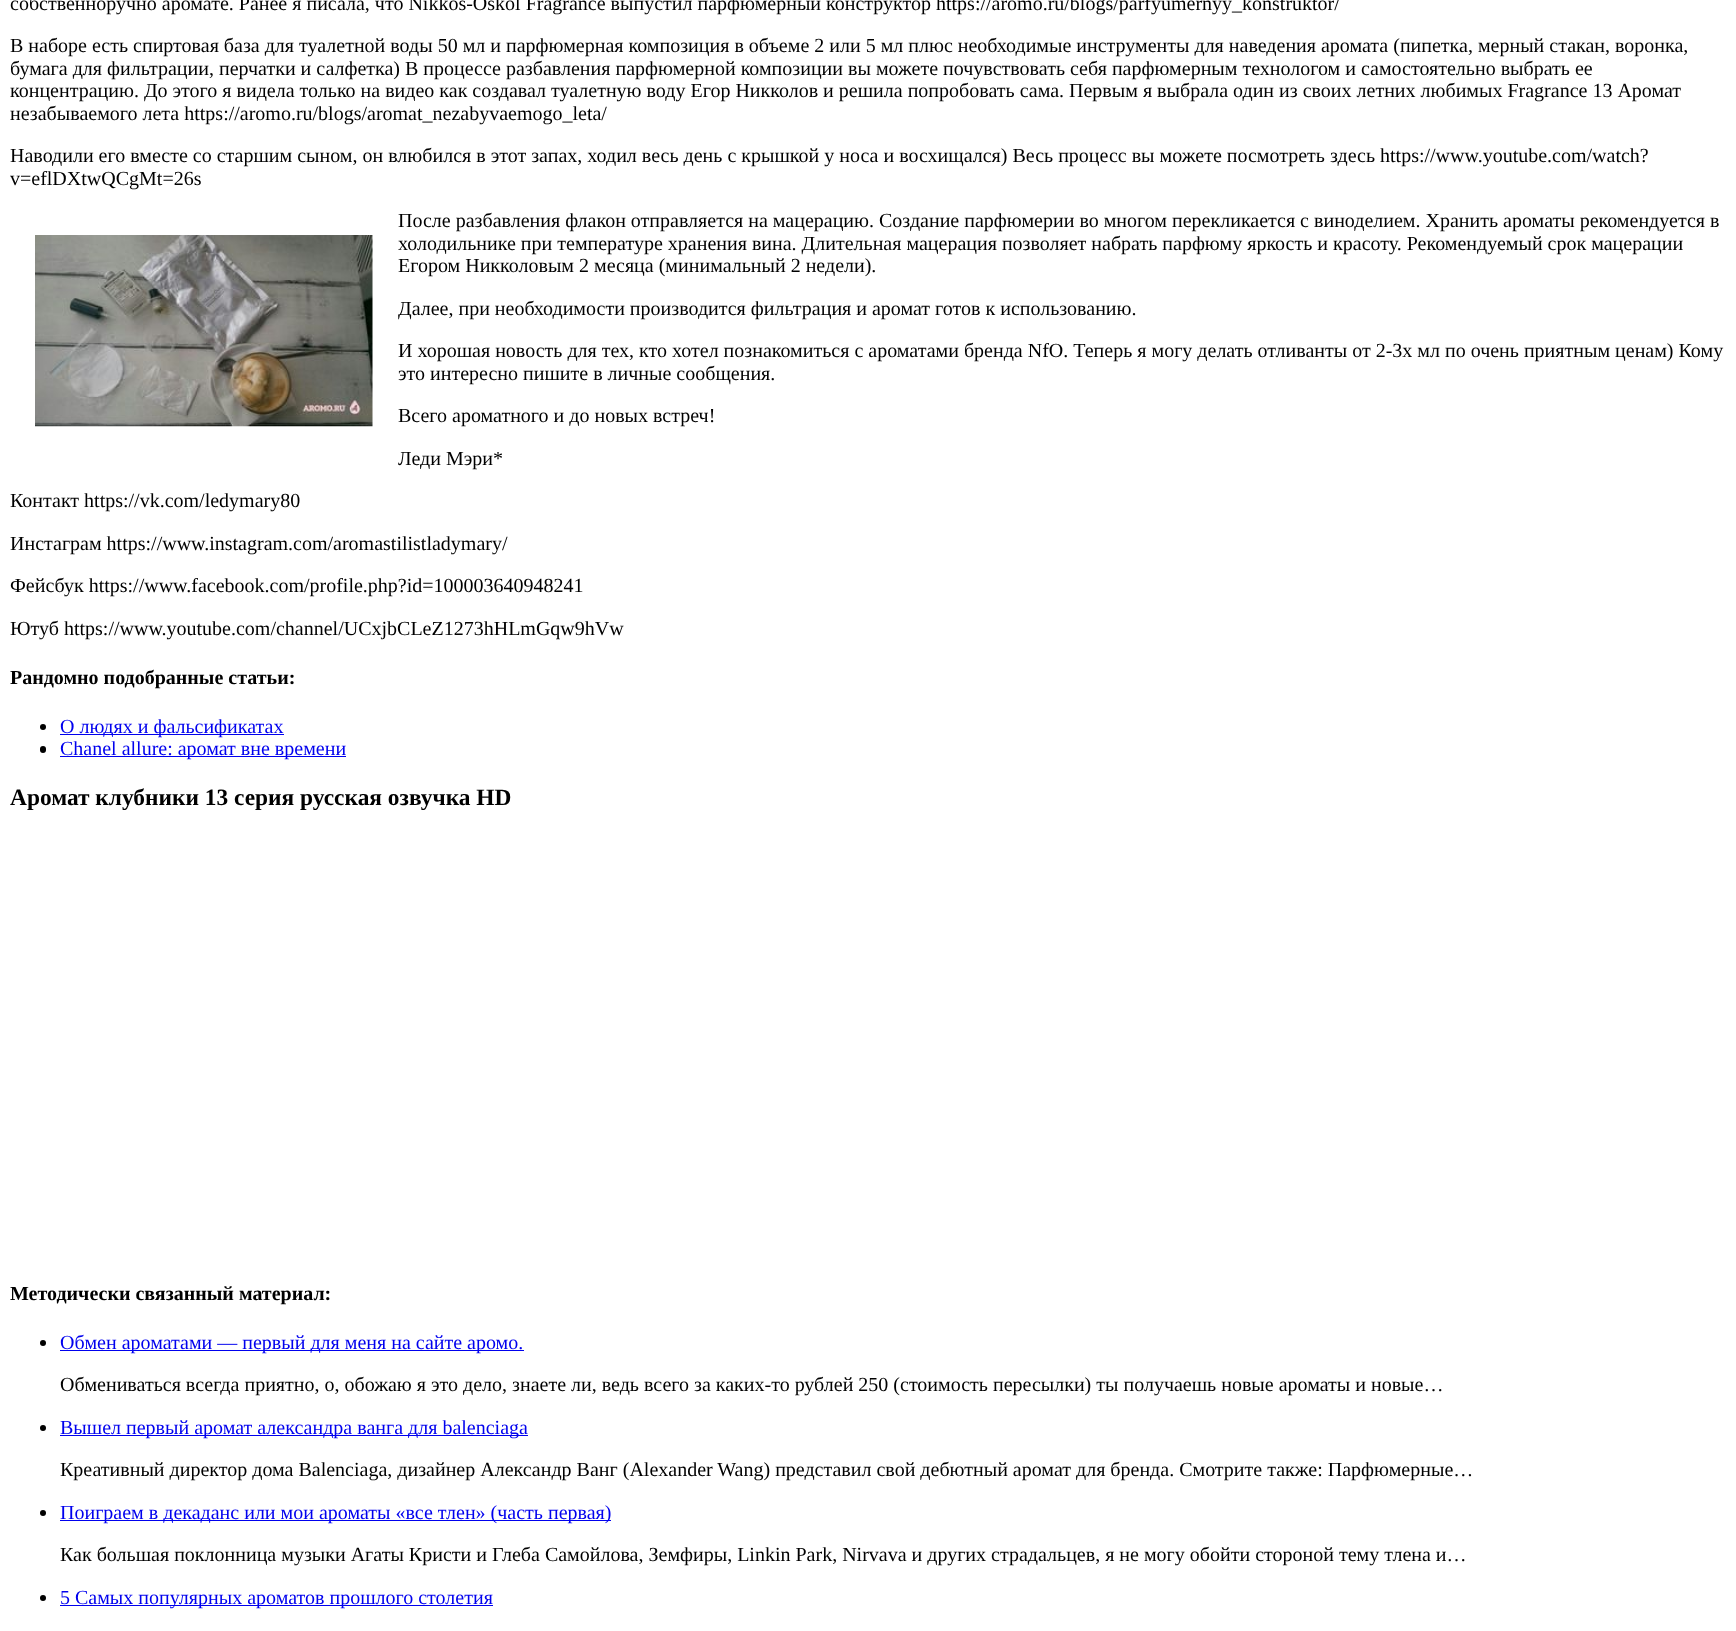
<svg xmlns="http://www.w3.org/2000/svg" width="1736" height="1631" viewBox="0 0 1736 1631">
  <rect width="100%" height="100%" fill="rgb(255,255,255)"/>
  <g font-family="Liberation Serif" font-size="20" fill="rgb(0,0,0)">
    <text x="10" y="10">собственноручно аромате. Ранее я писала, что Nikkos-Oskol Fragrance выпустил парфюмерный конструктор https://aromo.ru/blogs/parfyumernyy_konstruktor/</text>
    <text>
      <tspan x="10" y="52">В наборе есть спиртовая база для туалетной воды 50 мл и парфюмерная композиция в объеме 2 или 5 мл плюс необходимые инструменты для наведения аромата (пипетка, мерный стакан, воронка,</tspan>
      <tspan x="10" y="75">бумага для фильтрации, перчатки и салфетка) В процессе разбавления парфюмерной композиции вы можете почувствовать себя парфюмерным технологом и самостоятельно выбрать ее</tspan>
      <tspan x="10" y="97">концентрацию. До этого я видела только на видео как создавал туалетную воду Егор Никколов и решила попробовать сама. Первым я выбрала один из своих летних любимых Fragrance 13 Аромат</tspan>
      <tspan x="10" y="120">незабываемого лета https://aromo.ru/blogs/aromat_nezabyvaemogo_leta/</tspan>
    </text>
    <text>
      <tspan x="10" y="162">Наводили его вместе со старшим сыном, он влюбился в этот запах, ходил весь день с крышкой у носа и восхищался) Весь процесс вы можете посмотреть здесь https://www.youtube.com/watch?</tspan>
      <tspan x="10" y="185">v=eflDXtwQCgMt=26s</tspan>
    </text>
    <text x="398" y="227">После разбавления флакон отправляется на мацерацию. Создание парфюмерии во многом перекликается с виноделием. Хранить ароматы рекомендуется в</text>
  </g>
  <image x="35" y="235" width="338" height="192" href="pic1.png"/>
  <g font-family="Liberation Serif" font-size="20" fill="rgb(0,0,0)">
    <text>
      <tspan x="398" y="250">холодильнике при температуре хранения вина. Длительная мацерация позволяет набрать парфюму яркость и красоту. Рекомендуемый срок мацерации</tspan>
      <tspan x="398" y="272">Егором Никколовым 2 месяца (минимальный 2 недели).</tspan>
    </text>
    <text x="398" y="315">Далее, при необходимости производится фильтрация и аромат готов к использованию.</text>
    <text>
      <tspan x="398" y="357">И хорошая новость для тех, кто хотел познакомиться с ароматами бренда NfO. Теперь я могу делать отливанты от 2-3х мл по очень приятным ценам) Кому</tspan>
      <tspan x="398" y="380">это интересно пишите в личные сообщения.</tspan>
    </text>
    <text x="398" y="422">Всего ароматного и до новых встреч!</text>
    <text x="398" y="465">Леди Мэри*</text>
    <text x="10" y="507">Контакт https://vk.com/ledymary80</text>
    <text x="10" y="550">Инстаграм https://www.instagram.com/aromastilistladymary/</text>
    <text x="10" y="592">Фейсбук https://www.facebook.com/profile.php?id=100003640948241</text>
    <text x="10" y="635">Ютуб https://www.youtube.com/channel/UCxjbCLeZ1273hHLmGqw9hVw</text>
  </g>
  <text x="10" y="684" font-family="Liberation Serif" font-size="20" font-weight="bold" fill="rgb(0,0,0)">Рандомно подобранные статьи:</text>
  <circle cx="43" cy="727" r="3" fill="rgb(0,0,0)"/>
  <rect x="60" y="734" width="224" height="1" fill="rgb(0,0,238)"/>
  <text x="60" y="733" font-family="Liberation Serif" font-size="20" fill="rgb(0,0,238)">О людях и фальсификатах</text>
  <rect x="40" y="746" width="6" height="7" rx="3" fill="rgb(0,0,0)"/>
  <rect x="60" y="756" width="286" height="1" fill="rgb(0,0,238)"/>
  <text x="60" y="755" font-family="Liberation Serif" font-size="20" fill="rgb(0,0,238)">Chanel allure: аромат вне времени</text>
  <text x="10" y="805" font-family="Liberation Serif" font-size="23.4" font-weight="bold" fill="rgb(0,0,0)">Аромат клубники 13 серия русская озвучка HD</text>
  <text x="10" y="1300" font-family="Liberation Serif" font-size="20" font-weight="bold" fill="rgb(0,0,0)">Методически связанный материал:</text>
  <circle cx="43" cy="1343" r="3" fill="rgb(0,0,0)"/>
  <rect x="60" y="1350" width="464" height="1" fill="rgb(0,0,238)"/>
  <text x="60" y="1349" font-family="Liberation Serif" font-size="20" fill="rgb(0,0,238)">Обмен ароматами — первый для меня на сайте аромо.</text>
  <text x="60" y="1391" font-family="Liberation Serif" font-size="20" fill="rgb(0,0,0)">Обмениваться всегда приятно, о, обожаю я это дело, знаете ли, ведь всего за каких-то рублей 250 (стоимость пересылки) ты получаешь новые ароматы и новые…</text>
  <circle cx="43" cy="1428" r="3" fill="rgb(0,0,0)"/>
  <rect x="60" y="1435" width="468" height="1" fill="rgb(0,0,238)"/>
  <text x="60" y="1434" font-family="Liberation Serif" font-size="20" fill="rgb(0,0,238)">Вышел первый аромат александра ванга для balenciaga</text>
  <text x="60" y="1476" font-family="Liberation Serif" font-size="20" fill="rgb(0,0,0)">Креативный директор дома Balenciaga, дизайнер Александр Ванг (Alexander Wang) представил свой дебютный аромат для бренда. Смотрите также: Парфюмерные…</text>
  <circle cx="43" cy="1513" r="3" fill="rgb(0,0,0)"/>
  <rect x="60" y="1520" width="551" height="1" fill="rgb(0,0,238)"/>
  <text x="60" y="1519" font-family="Liberation Serif" font-size="20" fill="rgb(0,0,238)">Поиграем в декаданс или мои ароматы «все тлен» (часть первая)</text>
  <text x="60" y="1561" font-family="Liberation Serif" font-size="20" fill="rgb(0,0,0)">Как большая поклонница музыки Агаты Кристи и Глеба Самойлова, Земфиры, Linkin Park, Nirvava и других страдальцев, я не могу обойти стороной тему тлена и…</text>
  <circle cx="43" cy="1598" r="3" fill="rgb(0,0,0)"/>
  <rect x="60" y="1605" width="433" height="1" fill="rgb(0,0,238)"/>
  <text x="60" y="1604" font-family="Liberation Serif" font-size="20" fill="rgb(0,0,238)">5 Cамых популярных ароматов прошлого столетия</text>
</svg>
